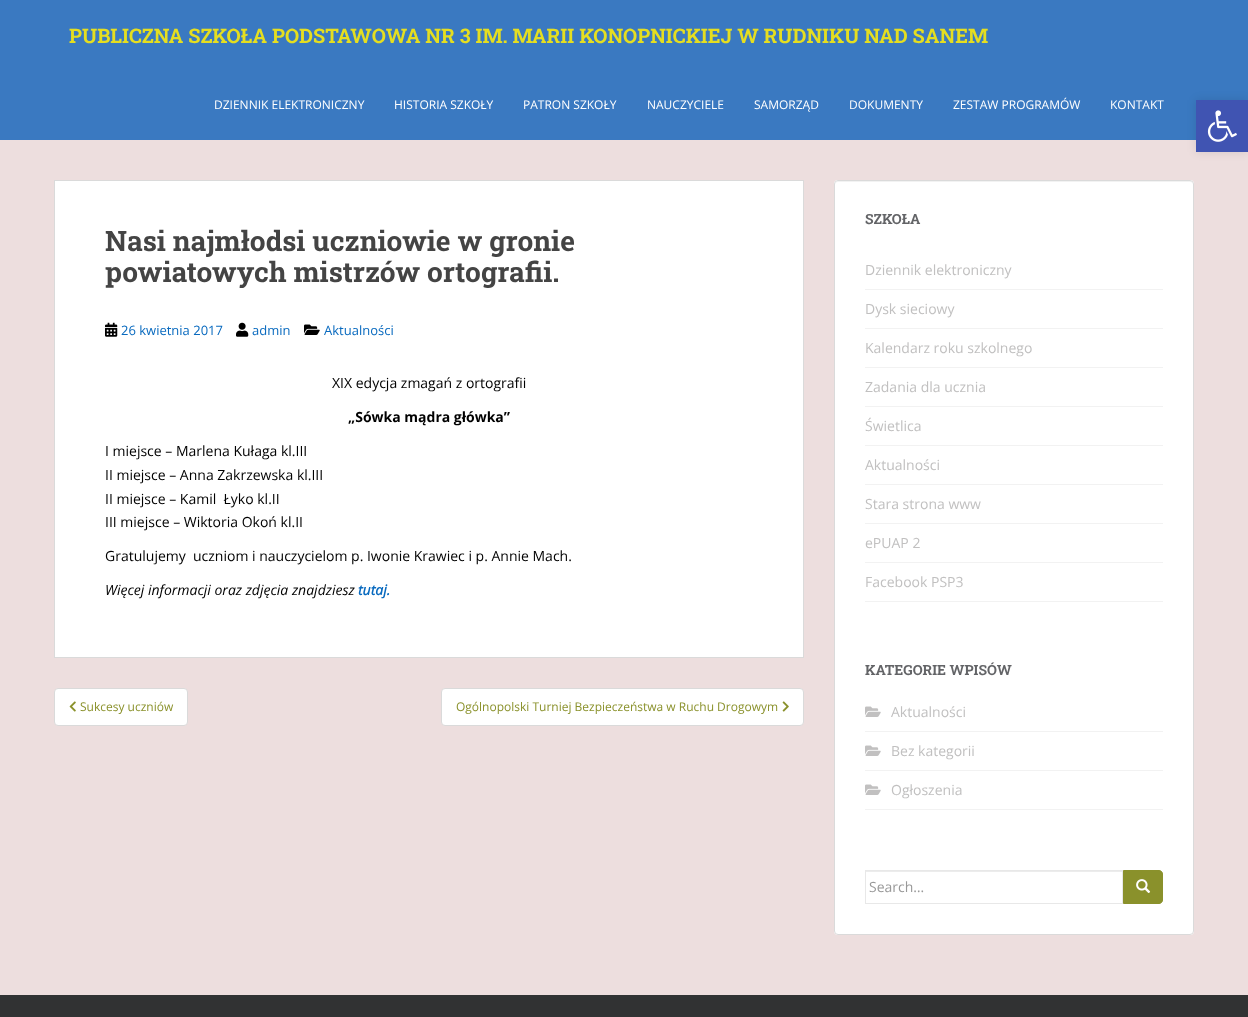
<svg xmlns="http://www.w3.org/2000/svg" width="1248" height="1017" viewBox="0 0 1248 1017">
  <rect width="100%" height="100%" fill="rgb(237,222,222)"/>
  <rect x="0" y="0" width="1248" height="140" fill="rgb(58,121,193)"/>
  <text x="69" y="43" font-family="Roboto Slab" font-size="20" font-weight="bold" fill="rgb(229,222,32)">PUBLICZNA SZKOŁA PODSTAWOWA NR 3 IM. MARII KONOPNICKIEJ W RUDNIKU NAD SANEM</text>
  <g font-family="Open Sans" font-size="12" fill="rgb(255,255,255)">
    <text x="214" y="109">DZIENNIK ELEKTRONICZNY</text>
    <text x="394" y="109">HISTORIA SZKOŁY</text>
    <text x="523" y="109">PATRON SZKOŁY</text>
    <text x="647" y="109">NAUCZYCIELE</text>
    <text x="754" y="109">SAMORZĄD</text>
    <text x="849" y="109">DOKUMENTY</text>
    <text x="953" y="109">ZESTAW PROGRAMÓW</text>
    <text x="1110" y="109">KONTAKT</text>
  </g>
  <rect x="54.5" y="180.5" width="749" height="477" fill="rgb(255,255,255)" stroke="rgb(218,218,218)"/>
  <g font-family="Roboto Slab" font-size="28" font-weight="bold" fill="rgb(68,68,68)">
    <text>
      <tspan x="105" y="251">Nasi najmłodsi uczniowie w gronie</tspan>
      <tspan x="105" y="282">powiatowych mistrzów ortografii.</tspan>
    </text>
  </g>
  <image x="105" y="322" width="13" height="15" href="pic1.png"/>
  <text x="121" y="335" font-family="Open Sans" font-size="13" fill="rgb(9,106,191)">26 kwietnia 2017</text>
  <image x="236" y="322" width="13" height="15" href="pic2.png"/>
  <text x="252" y="335" font-family="Open Sans" font-size="13" fill="rgb(9,106,191)">admin</text>
  <image x="304" y="324" width="16" height="11" href="pic3.png"/>
  <text x="324" y="335" font-family="Open Sans" font-size="13" fill="rgb(9,106,191)">Aktualności</text>
  <text x="332" y="388" font-family="Open Sans" font-size="14" fill="rgb(0,0,0)">XIX edycja zmagań z ortografii</text>
  <text x="348" y="422" font-family="Open Sans" font-size="14" font-weight="bold" fill="rgb(0,0,0)">„Sówka mądra główka”</text>
  <g font-family="Open Sans" font-size="14" fill="rgb(0,0,0)">
    <text xml:space="preserve"><tspan x="105" y="456">I miejsce – Marlena Kułaga kl.III</tspan><tspan x="105" y="480">II miejsce – Anna Zakrzewska kl.III</tspan><tspan x="105" y="504">II miejsce – Kamil  Łyko kl.II</tspan><tspan x="105" y="527">III miejsce – Wiktoria Okoń kl.II</tspan></text>
    <text x="105" y="561" xml:space="preserve">Gratulujemy  uczniom i nauczycielom p. Iwonie Krawiec i p. Annie Mach.</text>
  </g>
  <text x="105" y="595" font-family="Open Sans" font-size="14" font-style="italic" fill="rgb(0,0,0)">Więcej informacji oraz zdjęcia znajdziesz</text>
  <text x="358" y="595" font-family="Open Sans" font-size="14" font-weight="bold" font-style="italic" fill="rgb(9,106,191)">tutaj.</text>
  <rect x="54.5" y="688.5" width="133" height="37" rx="3.5" fill="rgb(255,255,255)" stroke="rgb(218,218,218)"/>
  <image x="69" y="701" width="7" height="11" href="pic4.png"/>
  <text x="80" y="711" font-family="Open Sans" font-size="12" fill="rgb(138,145,43)">Sukcesy uczniów</text>
  <rect x="441.5" y="688.5" width="362" height="37" rx="3.5" fill="rgb(255,255,255)" stroke="rgb(218,218,218)"/>
  <text x="456" y="711" font-family="Open Sans" font-size="12" fill="rgb(138,145,43)">Ogólnopolski Turniej Bezpieczeństwa w Ruchu Drogowym</text>
  <image x="782" y="701" width="7" height="11" href="pic5.png"/>
  <rect x="834" y="180" width="360" height="755" rx="4" fill="rgb(255,255,255)"/>
  <path d="M838 182H1190C1192 182 1193 183 1193 185C1193 183 1192 181 1190 181H838L836 182L835 185C835 183 836 182 838 182Z" fill="rgb(242,242,242)"/>
  <rect x="834.5" y="180.5" width="359" height="754" rx="3.5" fill="none" stroke="rgb(218,218,218)"/>
  <text x="865" y="224" font-family="Roboto Slab" font-size="14" font-weight="bold" fill="rgb(99,100,103)">SZKOŁA</text>
  <rect x="865" y="289" width="298" height="1" fill="rgb(242,242,242)"/>
  <text x="865" y="275" font-family="Open Sans" font-size="14" fill="rgb(193,192,192)">Dziennik elektroniczny</text>
  <rect x="865" y="328" width="298" height="1" fill="rgb(242,242,242)"/>
  <text x="865" y="314" font-family="Open Sans" font-size="14" fill="rgb(193,192,192)">Dysk sieciowy</text>
  <rect x="865" y="367" width="298" height="1" fill="rgb(242,242,242)"/>
  <text x="865" y="353" font-family="Open Sans" font-size="14" fill="rgb(193,192,192)">Kalendarz roku szkolnego</text>
  <rect x="865" y="406" width="298" height="1" fill="rgb(242,242,242)"/>
  <text x="865" y="392" font-family="Open Sans" font-size="14" fill="rgb(193,192,192)">Zadania dla ucznia</text>
  <rect x="865" y="445" width="298" height="1" fill="rgb(242,242,242)"/>
  <text x="865" y="431" font-family="Open Sans" font-size="14" fill="rgb(193,192,192)">Świetlica</text>
  <rect x="865" y="484" width="298" height="1" fill="rgb(242,242,242)"/>
  <text x="865" y="470" font-family="Open Sans" font-size="14" fill="rgb(193,192,192)">Aktualności</text>
  <rect x="865" y="523" width="298" height="1" fill="rgb(242,242,242)"/>
  <text x="865" y="509" font-family="Open Sans" font-size="14" fill="rgb(193,192,192)">Stara strona www</text>
  <rect x="865" y="562" width="298" height="1" fill="rgb(242,242,242)"/>
  <text x="865" y="548" font-family="Open Sans" font-size="14" fill="rgb(193,192,192)">ePUAP 2</text>
  <rect x="865" y="601" width="298" height="1" fill="rgb(242,242,242)"/>
  <text x="865" y="587" font-family="Open Sans" font-size="14" fill="rgb(193,192,192)">Facebook PSP3</text>
  <text x="865" y="675" font-family="Roboto Slab" font-size="14" font-weight="bold" fill="rgb(99,100,103)">KATEGORIE WPISÓW</text>
  <rect x="865" y="731" width="298" height="1" fill="rgb(242,242,242)"/>
  <image x="865" y="706" width="16" height="11" href="pic6.png"/>
  <text x="891" y="717" font-family="Open Sans" font-size="14" fill="rgb(193,192,192)">Aktualności</text>
  <rect x="865" y="770" width="298" height="1" fill="rgb(242,242,242)"/>
  <image x="865" y="745" width="16" height="11" href="pic6.png"/>
  <text x="891" y="756" font-family="Open Sans" font-size="14" fill="rgb(193,192,192)">Bez kategorii</text>
  <rect x="865" y="809" width="298" height="1" fill="rgb(242,242,242)"/>
  <image x="865" y="784" width="16" height="11" href="pic6.png"/>
  <text x="891" y="795" font-family="Open Sans" font-size="14" fill="rgb(193,192,192)">Ogłoszenia</text>
  <rect x="866" y="871" width="256" height="1" fill="rgb(236,236,236)"/>
  <rect x="865.5" y="870.5" width="257" height="33" fill="none" stroke="rgb(232,232,232)"/>
  <text x="869" y="892" font-family="Open Sans" font-size="14" fill="rgb(153,153,153)">Search…</text>
  <path d="M1123.5 870.5H1159C1161 870.5 1162.5 872 1162.5 874V900C1162.5 902 1161 903.5 1159 903.5H1123.5Z" fill="rgb(138,145,43)" stroke="rgb(138,145,43)"/>
  <image x="1136" y="879" width="15" height="14" href="pic7.png"/>
  <rect x="0" y="995" width="1248" height="22" fill="rgb(49,50,51)"/>
  <rect x="1196" y="100" width="52" height="52" fill="rgba(0,0,0,0.1)" filter="blur(5px)"/>
  <rect x="1196" y="100" width="52" height="52" fill="rgb(64,84,178)"/>
  <image x="1207" y="110" width="30" height="32" href="pic8.png"/>
</svg>
